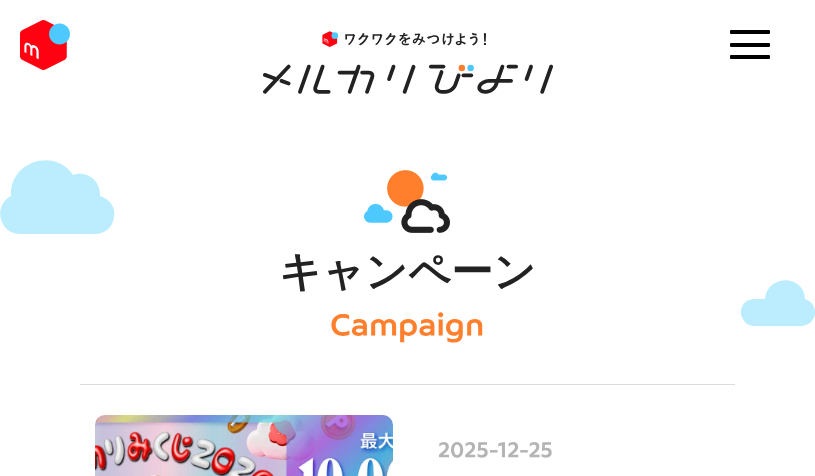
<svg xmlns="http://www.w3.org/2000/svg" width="815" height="476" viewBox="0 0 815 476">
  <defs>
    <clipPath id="clip1"><rect x="741" y="280" width="74" height="46"/></clipPath>
  </defs>
  <rect width="100%" height="100%" fill="rgb(255,255,255)"/>
  <image x="20" y="20" width="50" height="50" href="pic1.png"/>
  <image x="263" y="31" width="290" height="63" href="pic2.png"/>
  <rect x="730" y="30" width="40" height="4" rx="1" fill="rgb(0,0,0)"/>
  <rect x="730" y="43" width="40" height="4" rx="1" fill="rgb(0,0,0)"/>
  <rect x="730" y="55" width="40" height="4" rx="1" fill="rgb(0,0,0)"/>
  <path d="M100 196C101 181 87 170 73 175C54 147 9 162 11 196C3 200-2 210 1 219C3 228 11 234 20 234H95C105 234 113 227 114 217C116 208 110 199 100 196" fill="rgb(187,237,255)"/>
  <image x="364" y="170" width="86" height="63" href="pic3.png"/>
  <text x="279" y="286" font-family="WenQuanYi Zen Hei" font-size="42" font-weight="bold" fill="rgb(34,34,34)">キャンペーン</text>
  <text x="330" y="335" font-family="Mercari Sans" font-size="28" font-weight="bold" fill="rgb(255,127,44)">Campaign</text>
  <g clip-path="url(#clip1)">
    <path d="M755 299H765C767 274 804 274 805 299C812 301 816 308 815 314C814 321 808 326 801 326H755C750 326 745 324 743 319C740 315 740 310 743 305C745 301 750 299 755 299Z" fill="rgb(187,237,255)"/>
  </g>
  <rect x="80" y="384" width="655" height="1" fill="rgb(220,220,220)"/>
  <image x="95" y="415" width="298" height="61" href="pic4.png"/>
  <text x="438" y="457" font-family="Mercari Sans" font-size="20" font-weight="bold" fill="rgb(180,180,180)">2025-12-25</text>
</svg>
